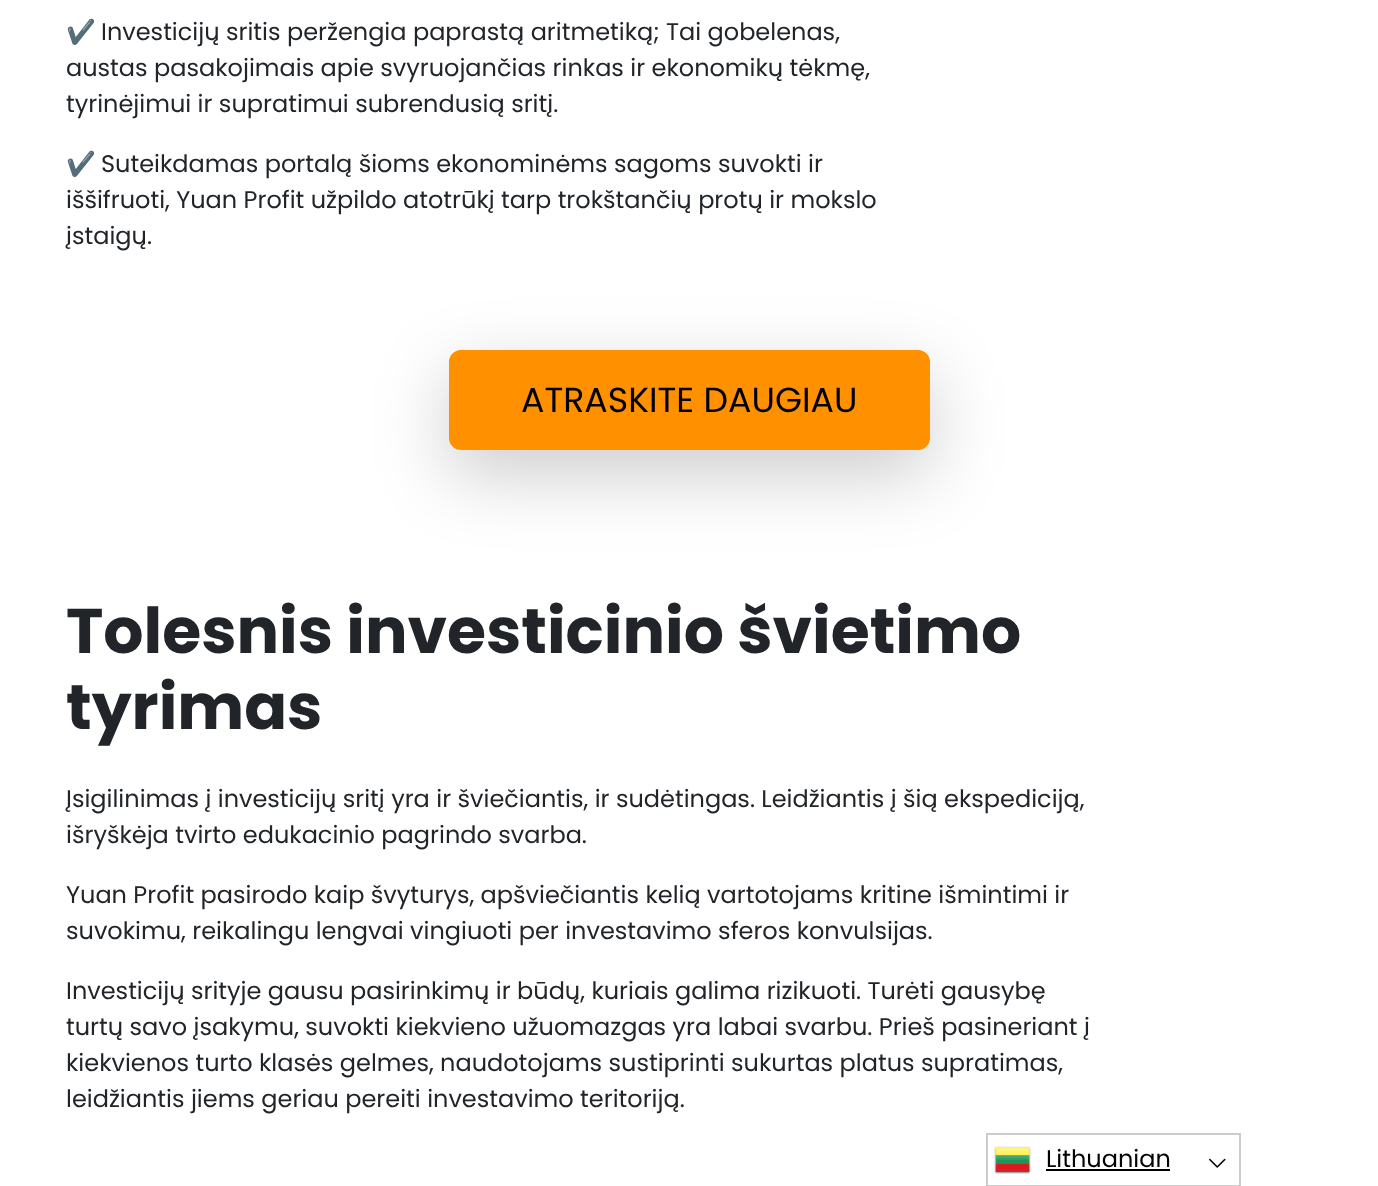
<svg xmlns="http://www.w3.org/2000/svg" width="1378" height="1186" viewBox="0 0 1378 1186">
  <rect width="100%" height="100%" fill="rgb(255,255,255)"/>
  <text x="66" y="40" font-family="Noto Color Emoji" font-size="24" font-weight="bold" fill="rgb(33,37,41)">✔️</text>
  <g font-family="Poppins" font-size="24" fill="rgb(33,37,41)">
    <text x="101" y="40">Investicijų sritis peržengia paprastą aritmetiką; Tai gobelenas,</text>
    <text>
      <tspan x="66" y="76">austas pasakojimais apie svyruojančias rinkas ir ekonomikų tėkmę,</tspan>
      <tspan x="66" y="112">tyrinėjimui ir supratimui subrendusią sritį.</tspan>
    </text>
  </g>
  <text x="66" y="172" font-family="Noto Color Emoji" font-size="24" font-weight="bold" fill="rgb(33,37,41)">✔️</text>
  <g font-family="Poppins" font-size="24" fill="rgb(33,37,41)">
    <text x="101" y="172">Suteikdamas portalą šioms ekonominėms sagoms suvokti ir</text>
    <text>
      <tspan x="66" y="208">iššifruoti, Yuan Profit užpildo atotrūkį tarp trokštančių protų ir mokslo</tspan>
      <tspan x="66" y="244">įstaigų.</tspan>
    </text>
  </g>
  <rect x="449" y="374" width="481" height="100" rx="12" fill="rgba(0,0,0,0.2)" filter="blur(36px)"/>
  <rect x="450" y="351" width="479" height="98" rx="11" fill="rgb(255,145,0)" stroke="rgb(255,145,0)" stroke-width="2"/>
  <text x="521" y="412" font-family="Poppins" font-size="34.75" fill="rgb(0,0,0)">ATRASKITE DAUGIAU</text>
  <g font-family="Poppins" font-size="63.2" font-weight="bold" fill="rgb(33,37,41)">
    <text>
      <tspan x="66" y="653">Tolesnis investicinio švietimo</tspan>
      <tspan x="66" y="729">tyrimas</tspan>
    </text>
  </g>
  <g font-family="Poppins" font-size="24" fill="rgb(33,37,41)">
    <text>
      <tspan x="66" y="807">Įsigilinimas į investicijų sritį yra ir šviečiantis, ir sudėtingas. Leidžiantis į šią ekspediciją,</tspan>
      <tspan x="66" y="843">išryškėja tvirto edukacinio pagrindo svarba.</tspan>
    </text>
    <text>
      <tspan x="66" y="903">Yuan Profit pasirodo kaip švyturys, apšviečiantis kelią vartotojams kritine išmintimi ir</tspan>
      <tspan x="66" y="939">suvokimu, reikalingu lengvai vingiuoti per investavimo sferos konvulsijas.</tspan>
    </text>
    <text>
      <tspan x="66" y="999">Investicijų srityje gausu pasirinkimų ir būdų, kuriais galima rizikuoti. Turėti gausybę</tspan>
      <tspan x="66" y="1035">turtų savo įsakymu, suvokti kiekvieno užuomazgas yra labai svarbu. Prieš pasineriant į</tspan>
      <tspan x="66" y="1071">kiekvienos turto klasės gelmes, naudotojams sustiprinti sukurtas platus supratimas,</tspan>
      <tspan x="66" y="1107">leidžiantis jiems geriau pereiti investavimo teritoriją.</tspan>
    </text>
  </g>
  <rect x="987" y="1134" width="253" height="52" fill="none" stroke="rgb(204,204,204)" stroke-width="2"/>
  <image x="994" y="1146" width="37" height="28" href="pic1.png"/>
  <text x="1046" y="1167" font-family="Poppins" font-size="24" fill="rgb(0,0,0)">Lithuanian</text>
  <rect x="1046" y="1169" width="124" height="2" fill="rgb(0,0,0)"/>
  <image x="1209" y="1158" width="17" height="10" href="pic2.png"/>
</svg>
